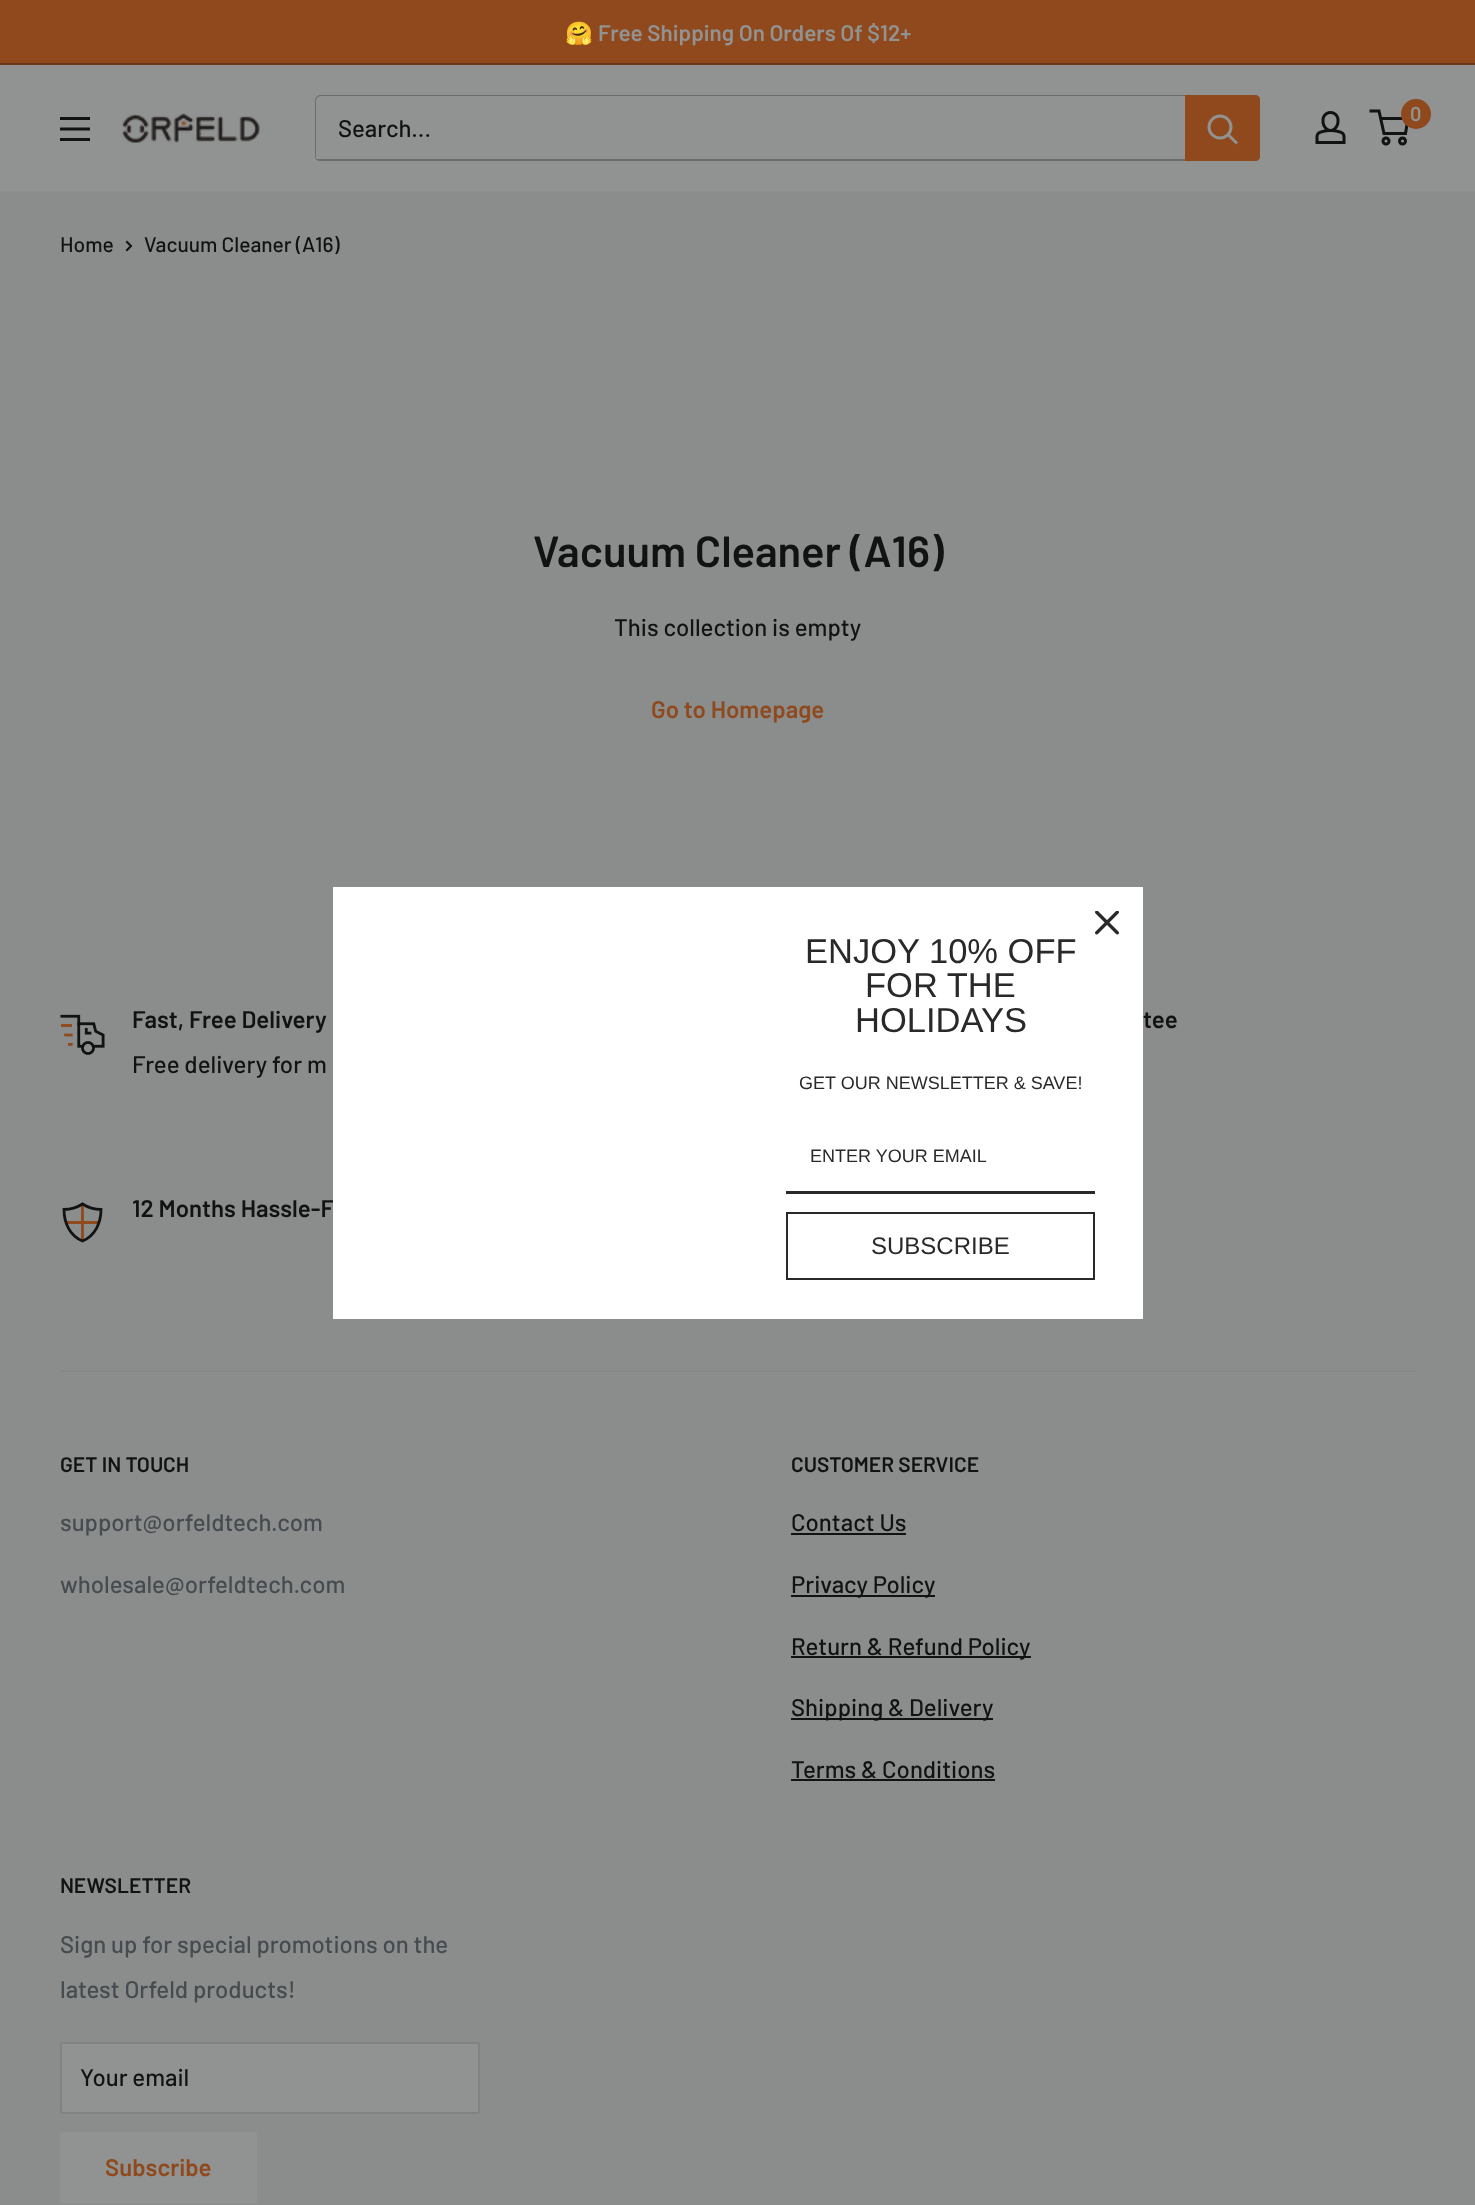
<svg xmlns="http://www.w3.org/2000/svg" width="1475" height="2205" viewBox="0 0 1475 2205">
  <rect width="100%" height="100%" fill="#8b8d8d"/>
  <rect x="0" y="0" width="1475" height="63" fill="#8f491c"/>
  <rect x="0" y="63" width="1475" height="2" fill="#693919"/>
  <text x="565" y="41" font-family="Noto Color Emoji" font-size="22.5" font-weight="bold" fill="#919292">🤗</text>
  <text x="598" y="41" font-family="Barlow" font-size="22.5" font-weight="600" fill="#919292">Free Shipping On Orders Of $12+</text>
  <rect x="0" y="65" width="1475" height="126" fill="#919292"/>
  <image x="60" y="117" width="30" height="24" href="img1.png"/>
  <image x="122" y="113" width="138" height="30" href="img2.png"/>
  <path d="M315 158C316 160 318 161 320 161H1255C1258 161 1260 159 1260 156V100C1260 98 1259 97 1258 96V98V154C1258 157 1256 159 1254 159H318C317 159 316 159 315 158Z" fill="#6b6c6c"/>
  <path d="M321 96H1258L1255 95H320C318 95 316 97 315 99V157L317 160L316 158V99C317 97 319 96 321 96Z" fill="#6b6c6c"/>
  <text x="338" y="137" font-family="Barlow" font-size="24" font-weight="500" fill="#111212">Search...</text>
  <path d="M1185 95H1255C1258 95 1260 97 1260 100V156C1260 159 1258 161 1255 161H1185Z" fill="#8f491c"/>
  <path d="M1236 142.5L1228.5 135" fill="none" stroke="#919292" stroke-width="3" stroke-linecap="square"/>
  <circle cx="1220" cy="127" r="11" fill="none" stroke="#919292" stroke-width="3"/>
  <image x="1315" y="111" width="31" height="33" href="img3.png"/>
  <circle cx="1386" cy="141" r="3" fill="none" stroke="#111212" stroke-width="3"/>
  <circle cx="1402.5" cy="141" r="3" fill="none" stroke="#111212" stroke-width="3"/>
  <path d="M1380.5 118.5H1408L1405.5 133.5H1384L1379 111H1369.5" fill="none" stroke="#111212" stroke-width="3"/>
  <circle cx="1416" cy="114" r="15" fill="#8f491c"/>
  <text x="1410" y="121" font-family="Barlow" font-size="20" font-weight="600" fill="#919292">0</text>
  <text x="60" y="252" font-family="Barlow" font-size="21" font-weight="500" fill="#111212">Home</text>
  <path d="M127 242L131 246L127 250" fill="none" stroke="#111212" stroke-width="2" stroke-linecap="square"/>
  <text x="144" y="252" font-family="Barlow" font-size="21" font-weight="500" fill="#111212">Vacuum Cleaner (A16)</text>
  <text x="533" y="567" font-family="Barlow" font-size="43.5" font-weight="600" fill="#111212">Vacuum Cleaner (A16)</text>
  <text x="614" y="636" font-family="Barlow" font-size="24" font-weight="500" fill="#111212">This collection is empty</text>
  <text x="651" y="718" font-family="Barlow" font-size="24" font-weight="600" fill="#8f491c">Go to Homepage</text>
  <text x="132" y="1217" font-family="Barlow" font-size="24" font-weight="600" fill="#111212">12 Months Hassle-F</text>
  <rect x="333" y="887" width="810" height="432" fill="#ffffff"/>
  <image x="1095" y="911" width="24" height="24" href="img4.png"/>
  <text x="805" y="963" font-family="Liberation Sans" font-size="34.5" fill="#292929">ENJOY 10% OFF</text>
  <text x="865" y="997" font-family="Liberation Sans" font-size="34.5" fill="#292929">FOR THE</text>
  <text x="855" y="1032" font-family="Liberation Sans" font-size="34.5" fill="#292929">HOLIDAYS</text>
  <text x="799" y="1089" font-family="Liberation Sans" font-size="18" fill="#292929">GET OUR NEWSLETTER &amp; SAVE!</text>
  <rect x="786" y="1191" width="309" height="3" fill="#292929"/>
  <text x="810" y="1162" font-family="Liberation Sans" font-size="18" fill="#292929">ENTER YOUR EMAIL</text>
  <rect x="787" y="1213" width="307" height="66" fill="none" stroke="#292929" stroke-width="2"/>
  <text x="871" y="1254" font-family="Liberation Sans" font-size="24" fill="#292929">SUBSCRIBE</text>
  <image x="60" y="1014" width="45" height="41" href="img5.png"/>
  <text x="132" y="1028" font-family="Barlow" font-size="24" font-weight="600" fill="#111212">Fast, Free Delivery</text>
  <text x="132" y="1073" font-family="Barlow" font-size="24" font-weight="500" fill="#111212">Free delivery for m</text>
  <text x="1143" y="1028" font-family="Barlow" font-size="24" font-weight="600" fill="#111212">tee</text>
  <path d="M82.5 1204V1241M99 1222.5H66" fill="none" stroke="#8f491c" stroke-width="2.8"/>
  <path d="M82.5 1204C77 1207.5 69.5 1209.5 64 1209.5C64 1222.5 69.5 1235.5 82.5 1241C95.5 1235.5 101 1222.5 101 1209.5C95.5 1209.5 88 1207.5 82.5 1204Z" fill="none" stroke="#111212" stroke-width="2.8" stroke-linecap="square"/>
  <rect x="60" y="1370" width="1356" height="2" fill="#878888"/>
  <text x="60" y="1472" font-family="Barlow" font-size="21" font-weight="600" fill="#111212">GET IN TOUCH</text>
  <text x="60" y="1531" font-family="Barlow" font-size="24" font-weight="500" fill="#454b4f">support@orfeldtech.com</text>
  <text x="60" y="1593" font-family="Barlow" font-size="24" font-weight="500" fill="#454b4f">wholesale@orfeldtech.com</text>
  <text x="791" y="1472" font-family="Barlow" font-size="21" font-weight="600" fill="#111212">CUSTOMER SERVICE</text>
  <text x="791" y="1531" font-family="Barlow" font-size="24" font-weight="500" fill="#111212">Contact Us</text>
  <rect x="791" y="1533" width="115" height="2" fill="#111212"/>
  <rect x="791" y="1595" width="144" height="2" fill="#111212"/>
  <text x="791" y="1593" font-family="Barlow" font-size="24" font-weight="500" fill="#111212">Privacy Policy</text>
  <rect x="791" y="1656" width="240" height="2" fill="#111212"/>
  <text x="791" y="1655" font-family="Barlow" font-size="24" font-weight="500" fill="#111212">Return &amp; Refund Policy</text>
  <rect x="791" y="1718" width="202" height="2" fill="#111212"/>
  <text x="791" y="1716" font-family="Barlow" font-size="24" font-weight="500" fill="#111212">Shipping &amp; Delivery</text>
  <text x="791" y="1778" font-family="Barlow" font-size="24" font-weight="500" fill="#111212">Terms &amp; Conditions</text>
  <rect x="791" y="1779" width="204" height="2" fill="#111212"/>
  <text x="60" y="1893" font-family="Barlow" font-size="21" font-weight="600" fill="#111212">NEWSLETTER</text>
  <text x="60" y="1953" font-family="Barlow" font-size="24" font-weight="500" fill="#454b4f">Sign up for special promotions on the</text>
  <text x="60" y="1998" font-family="Barlow" font-size="24" font-weight="500" fill="#454b4f">latest Orfeld products!</text>
  <rect x="61" y="2043" width="418" height="70" rx="2" fill="#919292" stroke="#818282" stroke-width="2"/>
  <text x="80" y="2086" font-family="Barlow" font-size="24" font-weight="500" fill="#111212">Your email</text>
  <rect x="60" y="2132" width="197" height="72" rx="3" fill="#919292"/>
  <text x="105" y="2176" font-family="Barlow" font-size="24" font-weight="600" fill="#8f491c">Subscribe</text>
</svg>
